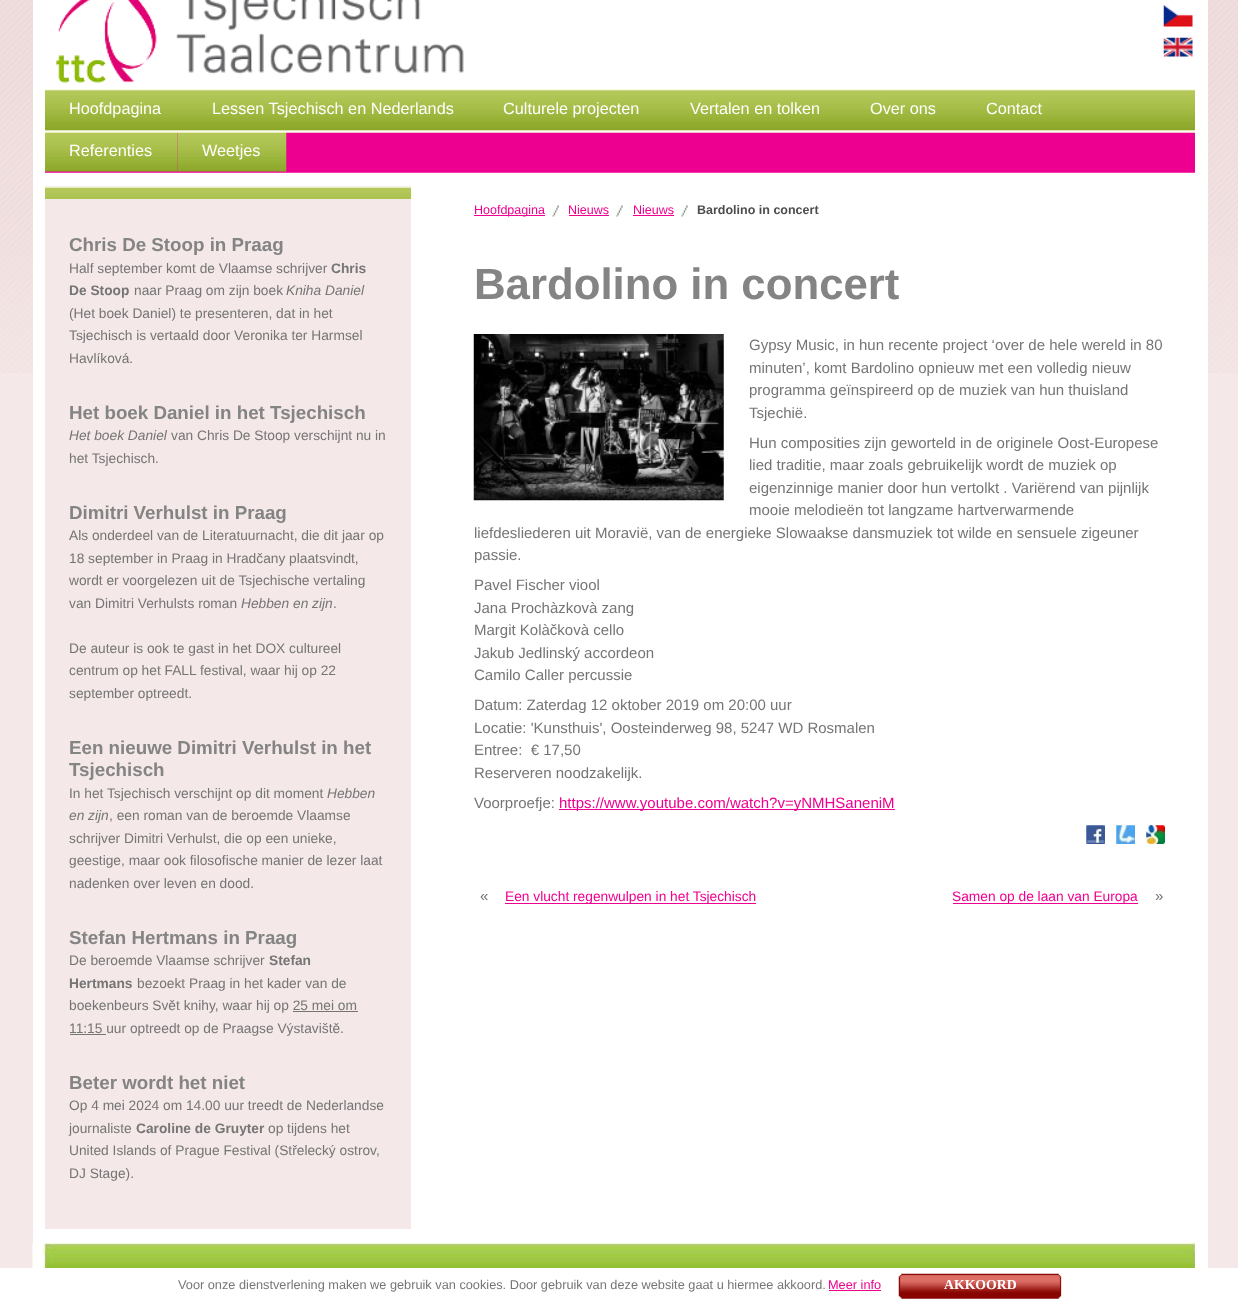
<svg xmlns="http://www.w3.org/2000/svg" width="1238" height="1305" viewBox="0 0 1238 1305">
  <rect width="100%" height="100%" fill="#f4e8e8"/>
  <image x="0" y="0" width="1238" height="373" href="img1.png"/>
  <image x="32" y="1242" width="1163" height="26" href="img16.png"/>
  <rect x="33" y="0" width="1175" height="1243" fill="#ffffff"/>
  <image x="56" y="0" width="408" height="83" href="img2.png"/>
  <image x="1163" y="4" width="30" height="23" href="img3.png"/>
  <image x="1163" y="37" width="30" height="20" href="img4.png"/>
  <image x="45" y="89" width="1150" height="84" href="img5.png"/>
  <text x="69" y="114" font-family="Liberation Sans" font-size="16.25" fill="#ffffff">Hoofdpagina</text>
  <text x="212" y="114" font-family="Liberation Sans" font-size="16.25" fill="#ffffff">Lessen Tsjechisch en Nederlands</text>
  <text x="503" y="114" font-family="Liberation Sans" font-size="16.25" fill="#ffffff">Culturele projecten</text>
  <text x="690" y="114" font-family="Liberation Sans" font-size="16.25" fill="#ffffff">Vertalen en tolken</text>
  <text x="870" y="114" font-family="Liberation Sans" font-size="16.25" fill="#ffffff">Over ons</text>
  <text x="986" y="114" font-family="Liberation Sans" font-size="16.25" fill="#ffffff">Contact</text>
  <image x="45" y="131" width="133" height="41" href="img6.png"/>
  <text x="69" y="156" font-family="Liberation Sans" font-size="16.25" fill="#ffffff">Referenties</text>
  <image x="177" y="131" width="110" height="41" href="img7.png"/>
  <text x="202" y="156" font-family="Liberation Sans" font-size="16.25" fill="#ffffff">Weetjes</text>
  <rect x="45" y="186" width="366" height="1043" fill="#f4e8e8"/>
  <image x="45" y="186" width="367" height="13" href="img8.png"/>
  <text x="69" y="251" font-family="Liberation Sans" font-size="18.75" font-weight="bold" fill="#848484">Chris De Stoop in Praag</text>
  <text x="69" y="273" font-family="Liberation Sans" font-size="13.75" fill="#757575">Half september komt de Vlaamse schrijver</text>
  <text x="331" y="273" font-family="Liberation Sans" font-size="13.75" font-weight="bold" fill="#757575">Chris</text>
  <text x="69" y="295" font-family="Liberation Sans" font-size="13.75" font-weight="bold" fill="#757575">De Stoop</text>
  <text x="134" y="295" font-family="Liberation Sans" font-size="13.75" fill="#757575">naar Praag om zijn boek</text>
  <text x="286" y="295" font-family="Liberation Sans" font-size="13.75" font-style="italic" fill="#757575">Kniha Daniel</text>
  <text x="69" y="318" font-family="Liberation Sans" font-size="13.75" fill="#757575">(Het boek Daniel) te presenteren, dat in het</text>
  <text x="69" y="340" font-family="Liberation Sans" font-size="13.75" fill="#757575">Tsjechisch is vertaald door Veronika ter Harmsel</text>
  <text x="69" y="363" font-family="Liberation Sans" font-size="13.75" fill="#757575">Havlíková.</text>
  <text x="69" y="419" font-family="Liberation Sans" font-size="18.75" font-weight="bold" fill="#848484">Het boek Daniel in het Tsjechisch</text>
  <text x="69" y="440" font-family="Liberation Sans" font-size="13.75" font-style="italic" fill="#757575">Het boek Daniel</text>
  <text x="171" y="440" font-family="Liberation Sans" font-size="13.75" fill="#757575">van Chris De Stoop verschijnt nu in</text>
  <text x="69" y="463" font-family="Liberation Sans" font-size="13.75" fill="#757575">het Tsjechisch.</text>
  <text x="69" y="519" font-family="Liberation Sans" font-size="18.75" font-weight="bold" fill="#848484">Dimitri Verhulst in Praag</text>
  <text x="69" y="540" font-family="Liberation Sans" font-size="13.75" fill="#757575">Als onderdeel van de Literatuurnacht, die dit jaar op</text>
  <text x="69" y="563" font-family="Liberation Sans" font-size="13.75" fill="#757575">18 september in Praag in Hradčany plaatsvindt,</text>
  <text x="69" y="585" font-family="Liberation Sans" font-size="13.75" fill="#757575">wordt er voorgelezen uit de Tsjechische vertaling</text>
  <text x="69" y="608" font-family="Liberation Sans" font-size="13.75" fill="#757575">van Dimitri Verhulsts roman</text>
  <text x="241" y="608" font-family="Liberation Sans" font-size="13.75" font-style="italic" fill="#757575">Hebben en zijn</text>
  <text x="333" y="608" font-family="Liberation Sans" font-size="13.75" fill="#757575">.</text>
  <text x="69" y="653" font-family="Liberation Sans" font-size="13.75" fill="#757575">De auteur is ook te gast in het DOX cultureel</text>
  <text x="69" y="675" font-family="Liberation Sans" font-size="13.75" fill="#757575">centrum op het FALL festival, waar hij op 22</text>
  <text x="69" y="698" font-family="Liberation Sans" font-size="13.75" fill="#757575">september optreedt.</text>
  <text x="69" y="754" font-family="Liberation Sans" font-size="18.75" font-weight="bold" fill="#848484">Een nieuwe Dimitri Verhulst in het</text>
  <text x="69" y="776" font-family="Liberation Sans" font-size="18.75" font-weight="bold" fill="#848484">Tsjechisch</text>
  <text x="69" y="798" font-family="Liberation Sans" font-size="13.75" fill="#757575">In het Tsjechisch verschijnt op dit moment</text>
  <text x="327" y="798" font-family="Liberation Sans" font-size="13.75" font-style="italic" fill="#757575">Hebben</text>
  <text x="69" y="820" font-family="Liberation Sans" font-size="13.75" font-style="italic" fill="#757575">en zijn</text>
  <text x="109" y="820" font-family="Liberation Sans" font-size="13.75" fill="#757575">, een roman van de beroemde Vlaamse</text>
  <text x="69" y="843" font-family="Liberation Sans" font-size="13.75" fill="#757575">schrijver Dimitri Verhulst, die op een unieke,</text>
  <text x="69" y="865" font-family="Liberation Sans" font-size="13.75" fill="#757575">geestige, maar ook filosofische manier de lezer laat</text>
  <text x="69" y="888" font-family="Liberation Sans" font-size="13.75" fill="#757575">nadenken over leven en dood.</text>
  <text x="69" y="944" font-family="Liberation Sans" font-size="18.75" font-weight="bold" fill="#848484">Stefan Hertmans in Praag</text>
  <text x="69" y="965" font-family="Liberation Sans" font-size="13.75" fill="#757575">De beroemde Vlaamse schrijver</text>
  <text x="269" y="965" font-family="Liberation Sans" font-size="13.75" font-weight="bold" fill="#757575">Stefan</text>
  <text x="69" y="988" font-family="Liberation Sans" font-size="13.75" font-weight="bold" fill="#757575">Hertmans</text>
  <text x="137" y="988" font-family="Liberation Sans" font-size="13.75" fill="#757575">bezoekt Praag in het kader van de</text>
  <text x="69" y="1010" font-family="Liberation Sans" font-size="13.75" fill="#757575">boekenbeurs Svět knihy, waar hij op 25 mei om</text>
  <rect x="70" y="1034" width="36" height="1" fill="#757575"/>
  <text x="69" y="1033" font-family="Liberation Sans" font-size="13.75" fill="#757575">11:15 uur optreedt op de Praagse Výstaviště.</text>
  <rect x="293" y="1011" width="65" height="1" fill="#757575"/>
  <text x="69" y="1089" font-family="Liberation Sans" font-size="18.75" font-weight="bold" fill="#848484">Beter wordt het niet</text>
  <text x="69" y="1110" font-family="Liberation Sans" font-size="13.75" fill="#757575">Op 4 mei 2024 om 14.00 uur treedt de Nederlandse</text>
  <text x="69" y="1133" font-family="Liberation Sans" font-size="13.75" fill="#757575">journaliste</text>
  <text x="136" y="1133" font-family="Liberation Sans" font-size="13.75" font-weight="bold" fill="#757575">Caroline de Gruyter</text>
  <text x="268" y="1133" font-family="Liberation Sans" font-size="13.75" fill="#757575">op tijdens het</text>
  <text x="69" y="1155" font-family="Liberation Sans" font-size="13.75" fill="#757575">United Islands of Prague Festival (Střelecký ostrov,</text>
  <text x="69" y="1178" font-family="Liberation Sans" font-size="13.75" fill="#757575">DJ Stage).</text>
  <rect x="474" y="215" width="71" height="1" fill="#ef008f"/>
  <text x="474" y="214" font-family="Liberation Sans" font-size="12.5" fill="#ef008f">Hoofdpagina</text>
  <image x="552" y="205" width="7" height="12" href="img9.png"/>
  <text x="568" y="214" font-family="Liberation Sans" font-size="12.5" fill="#ef008f">Nieuws</text>
  <rect x="569" y="215" width="40" height="1" fill="#ef008f"/>
  <image x="616" y="205" width="7" height="12" href="img10.png"/>
  <text x="633" y="214" font-family="Liberation Sans" font-size="12.5" fill="#ef008f">Nieuws</text>
  <rect x="633" y="215" width="41" height="1" fill="#ef008f"/>
  <image x="681" y="205" width="7" height="12" href="img11.png"/>
  <text x="697" y="214" font-family="Liberation Sans" font-size="12.5" font-weight="bold" fill="#4d4d4d">Bardolino in concert</text>
  <text x="474" y="299" font-family="Liberation Sans" font-size="43.75" font-weight="bold" fill="#848484">Bardolino in concert</text>
  <image x="473" y="334" width="251" height="167" href="img12.png"/>
  <text x="749" y="350" font-family="Liberation Sans" font-size="15" fill="#757575">Gypsy Music, in hun recente project ‘over de hele wereld in 80</text>
  <text x="749" y="373" font-family="Liberation Sans" font-size="15" fill="#757575">minuten’, komt Bardolino opnieuw met een volledig nieuw</text>
  <text x="749" y="395" font-family="Liberation Sans" font-size="15" fill="#757575">programma geïnspireerd op de muziek van hun thuisland</text>
  <text x="749" y="418" font-family="Liberation Sans" font-size="15" fill="#757575">Tsjechië.</text>
  <text x="749" y="448" font-family="Liberation Sans" font-size="15" fill="#757575">Hun composities zijn geworteld in de originele Oost-Europese</text>
  <text x="749" y="470" font-family="Liberation Sans" font-size="15" fill="#757575">lied traditie, maar zoals gebruikelijk wordt de muziek op</text>
  <text x="749" y="493" font-family="Liberation Sans" font-size="15" fill="#757575">eigenzinnige manier door hun vertolkt . Variërend van pijnlijk</text>
  <text x="749" y="515" font-family="Liberation Sans" font-size="15" fill="#757575">mooie melodieën tot langzame hartverwarmende</text>
  <text x="474" y="538" font-family="Liberation Sans" font-size="15" fill="#757575">liefdesliederen uit Moravië, van de energieke Slowaakse dansmuziek tot wilde en sensuele zigeuner</text>
  <text x="474" y="560" font-family="Liberation Sans" font-size="15" fill="#757575">passie.</text>
  <text x="474" y="590" font-family="Liberation Sans" font-size="15" fill="#757575">Pavel Fischer viool</text>
  <text x="474" y="613" font-family="Liberation Sans" font-size="15" fill="#757575">Jana Prochàzkovà zang</text>
  <text x="474" y="635" font-family="Liberation Sans" font-size="15" fill="#757575">Margit Kolàčkovà cello</text>
  <text x="474" y="658" font-family="Liberation Sans" font-size="15" fill="#757575">Jakub Jedlinský accordeon</text>
  <text x="474" y="680" font-family="Liberation Sans" font-size="15" fill="#757575">Camilo Caller percussie</text>
  <text x="474" y="710" font-family="Liberation Sans" font-size="15" fill="#757575">Datum: Zaterdag 12 oktober 2019 om 20:00 uur</text>
  <text x="474" y="733" font-family="Liberation Sans" font-size="15" fill="#757575">Locatie: 'Kunsthuis', Oosteinderweg 98, 5247 WD Rosmalen</text>
  <text x="474" y="755" font-family="Liberation Sans" font-size="15" fill="#757575" xml:space="preserve">Entree:  € 17,50</text>
  <text x="474" y="778" font-family="Liberation Sans" font-size="15" fill="#757575">Reserveren noodzakelijk.</text>
  <text x="474" y="808" font-family="Liberation Sans" font-size="15" fill="#757575">Voorproefje:</text>
  <rect x="559" y="809" width="336" height="1" fill="#ef008f"/>
  <text x="559" y="808" font-family="Liberation Sans" font-size="15" fill="#ef008f">https://www.youtube.com/watch?v=yNMHSaneniM</text>
  <image x="1086" y="825" width="19" height="19" href="img13.png"/>
  <image x="1116" y="825" width="19" height="19" href="img14.png"/>
  <image x="1146" y="825" width="19" height="19" href="img15.png"/>
  <text x="480" y="901" font-family="Liberation Sans" font-size="15" fill="#757575">«</text>
  <rect x="505" y="903" width="251" height="1" fill="#ef008f"/>
  <text x="505" y="901" font-family="Liberation Sans" font-size="13.75" fill="#ef008f">Een vlucht regenwulpen in het Tsjechisch</text>
  <rect x="953" y="903" width="185" height="1" fill="#ef008f"/>
  <text x="952" y="901" font-family="Liberation Sans" font-size="13.75" fill="#ef008f">Samen op de laan van Europa</text>
  <text x="1155" y="901" font-family="Liberation Sans" font-size="15" fill="#757575">»</text>
  <rect x="1195" y="1243" width="13" height="25" fill="#ffffff"/>
  <rect x="0" y="1268" width="1238" height="37" fill="#ffffff"/>
  <text x="178" y="1289" font-family="Liberation Sans" font-size="12.75" fill="#757575">Voor onze dienstverlening maken we gebruik van cookies. Door gebruik van deze website gaat u hiermee akkoord.</text>
  <text x="828" y="1289" font-family="Liberation Sans" font-size="12.75" fill="#ef008f">Meer info</text>
  <rect x="829" y="1290" width="52" height="1" fill="#ef008f"/>
  <image x="898" y="1273" width="164" height="26" href="img17.png"/>
  <text x="944" y="1289" font-family="Liberation Serif" font-size="13.75" font-weight="bold" fill="#ffffff">AKKOORD</text>
</svg>
